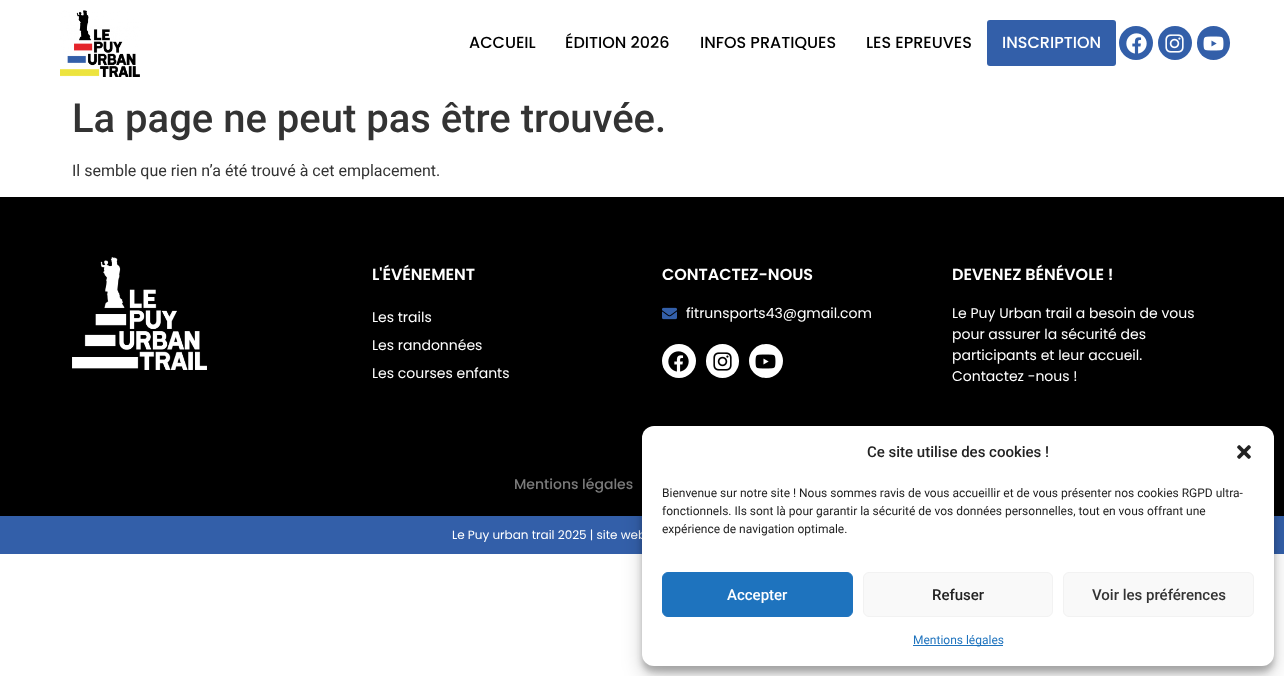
<svg xmlns="http://www.w3.org/2000/svg" width="1284" height="676" viewBox="0 0 1284 676">
  <defs>
    <filter id="blur1" x="-50%" y="-200%" width="200%" height="500%"><feGaussianBlur stdDeviation="3"/></filter>
    <filter id="blur2" x="-50%" y="-200%" width="200%" height="500%"><feGaussianBlur stdDeviation="10"/></filter>
  </defs>
  <rect width="100%" height="100%" fill="#ffffff"/>
  <image x="60" y="10" width="80" height="67" href="img1.png"/>
  <text x="469" y="48" font-family="Poppins" font-size="16" font-weight="500" fill="#000000">ACCUEIL</text>
  <text x="565" y="48" font-family="Poppins" font-size="16" font-weight="500" fill="#000000">ÉDITION 2026</text>
  <text x="700" y="48" font-family="Poppins" font-size="16" font-weight="500" fill="#000000">INFOS PRATIQUES</text>
  <text x="866" y="48" font-family="Poppins" font-size="16" font-weight="500" fill="#000000">LES EPREUVES</text>
  <rect x="987" y="20" width="129" height="46" rx="3" fill="#335fa9"/>
  <text x="1002" y="48" font-family="Poppins" font-size="16" font-weight="500" fill="#ffffff">INSCRIPTION</text>
  <circle cx="1136" cy="43" r="17" fill="#335fa9"/>
  <image x="1126" y="33" width="21" height="21" href="img2.png"/>
  <circle cx="1175" cy="43" r="17" fill="#335fa9"/>
  <image x="1165" y="34" width="19" height="19" href="img3.png"/>
  <rect x="1197" y="26" width="33" height="34" rx="16.5" fill="#335fa9"/>
  <image x="1203" y="36" width="21" height="15" href="img4.png"/>
  <text x="72" y="132" font-family="Roboto" font-size="40" font-weight="500" fill="#333333">La page ne peut pas être trouvée.</text>
  <text x="72" y="176" font-family="Roboto" font-size="16" fill="#333333">Il semble que rien n’a été trouvé à cet emplacement.</text>
  <rect x="0" y="197" width="1284" height="319" fill="#000000"/>
  <image x="72" y="257" width="135" height="113" href="img5.png"/>
  <text x="372" y="280" font-family="Poppins" font-size="16" font-weight="600" fill="#ffffff">L'ÉVÉNEMENT</text>
  <text x="372" y="322" font-family="Poppins" font-size="14" fill="#ffffff">Les trails</text>
  <text x="372" y="350" font-family="Poppins" font-size="14" fill="#ffffff">Les randonnées</text>
  <text x="372" y="378" font-family="Poppins" font-size="14" fill="#ffffff">Les courses enfants</text>
  <text x="662" y="280" font-family="Poppins" font-size="16" font-weight="600" fill="#ffffff">CONTACTEZ-NOUS</text>
  <image x="662" y="307" width="15" height="13" href="img6.png"/>
  <text x="686" y="318" font-family="Poppins" font-size="14" fill="#ffffff">fitrunsports43@gmail.com</text>
  <circle cx="679" cy="361" r="17" fill="#ffffff"/>
  <image x="668" y="351" width="21" height="21" href="img7.png"/>
  <rect x="706" y="344" width="33" height="34" rx="16.5" fill="#ffffff"/>
  <image x="713" y="352" width="19" height="19" href="img8.png"/>
  <circle cx="766" cy="361" r="17" fill="#ffffff"/>
  <image x="755" y="354" width="21" height="15" href="img9.png"/>
  <text x="952" y="280" font-family="Poppins" font-size="16" font-weight="600" fill="#ffffff">DEVENEZ BÉNÉVOLE !</text>
  <text x="952" y="318" font-family="Poppins" font-size="14" fill="#ffffff">Le Puy Urban trail a besoin de vous</text>
  <text x="952" y="339" font-family="Poppins" font-size="14" fill="#ffffff">pour assurer la sécurité des</text>
  <text x="952" y="360" font-family="Poppins" font-size="14" fill="#ffffff">participants et leur accueil.</text>
  <text x="952" y="381" font-family="Poppins" font-size="14" fill="#ffffff">Contactez -nous !</text>
  <text x="514" y="489" font-family="Poppins" font-size="14" font-weight="500" fill="#7c7c7c">Mentions légales</text>
  <rect x="0" y="516" width="1284" height="38" fill="#335fa9"/>
  <text x="452" y="539" font-family="Poppins" font-size="12" fill="#ffffff">Le Puy urban trail 2025 | site web</text>
  <rect x="642" y="432" width="632" height="240" rx="12" fill="#000000" fill-opacity="0.23" filter="url(#blur1)"/>
  <rect x="642" y="436" width="632" height="240" rx="12" fill="#000000" fill-opacity="0.19" filter="url(#blur2)"/>
  <rect x="642" y="426" width="632" height="240" rx="12" fill="#ffffff"/>
  <text x="867" y="457" font-family="Roboto" font-size="15" font-weight="500" fill="#222222">Ce site utilise des cookies !</text>
  <image x="1237" y="445" width="14" height="14" href="img10.png"/>
  <text x="662" y="497" font-family="Roboto" font-size="12" fill="#222222">Bienvenue sur notre site ! Nous sommes ravis de vous accueillir et de vous présenter nos cookies RGPD ultra-</text>
  <text x="662" y="515" font-family="Roboto" font-size="12" fill="#222222">fonctionnels. Ils sont là pour garantir la sécurité de vos données personnelles, tout en vous offrant une</text>
  <text x="662" y="533" font-family="Roboto" font-size="12" fill="#222222">expérience de navigation optimale.</text>
  <rect x="662.5" y="572.5" width="190" height="44" rx="5.5" fill="#1e73be" stroke="#1e73be"/>
  <text x="727" y="600" font-family="Roboto" font-size="15" font-weight="500" fill="#ffffff">Accepter</text>
  <rect x="863.5" y="572.5" width="189" height="44" rx="5.5" fill="#f9f9f9" stroke="#f2f2f2"/>
  <text x="932" y="600" font-family="Roboto" font-size="15" font-weight="500" fill="#222222">Refuser</text>
  <rect x="1063.5" y="572.5" width="190" height="44" rx="5.5" fill="#f9f9f9" stroke="#f2f2f2"/>
  <text x="1092" y="600" font-family="Roboto" font-size="15" font-weight="500" fill="#333333">Voir les préférences</text>
  <rect x="913" y="645" width="90" height="1" fill="#1e73be"/>
  <text x="913" y="644" font-family="Roboto" font-size="12" fill="#1e73be">Mentions légales</text>
</svg>
